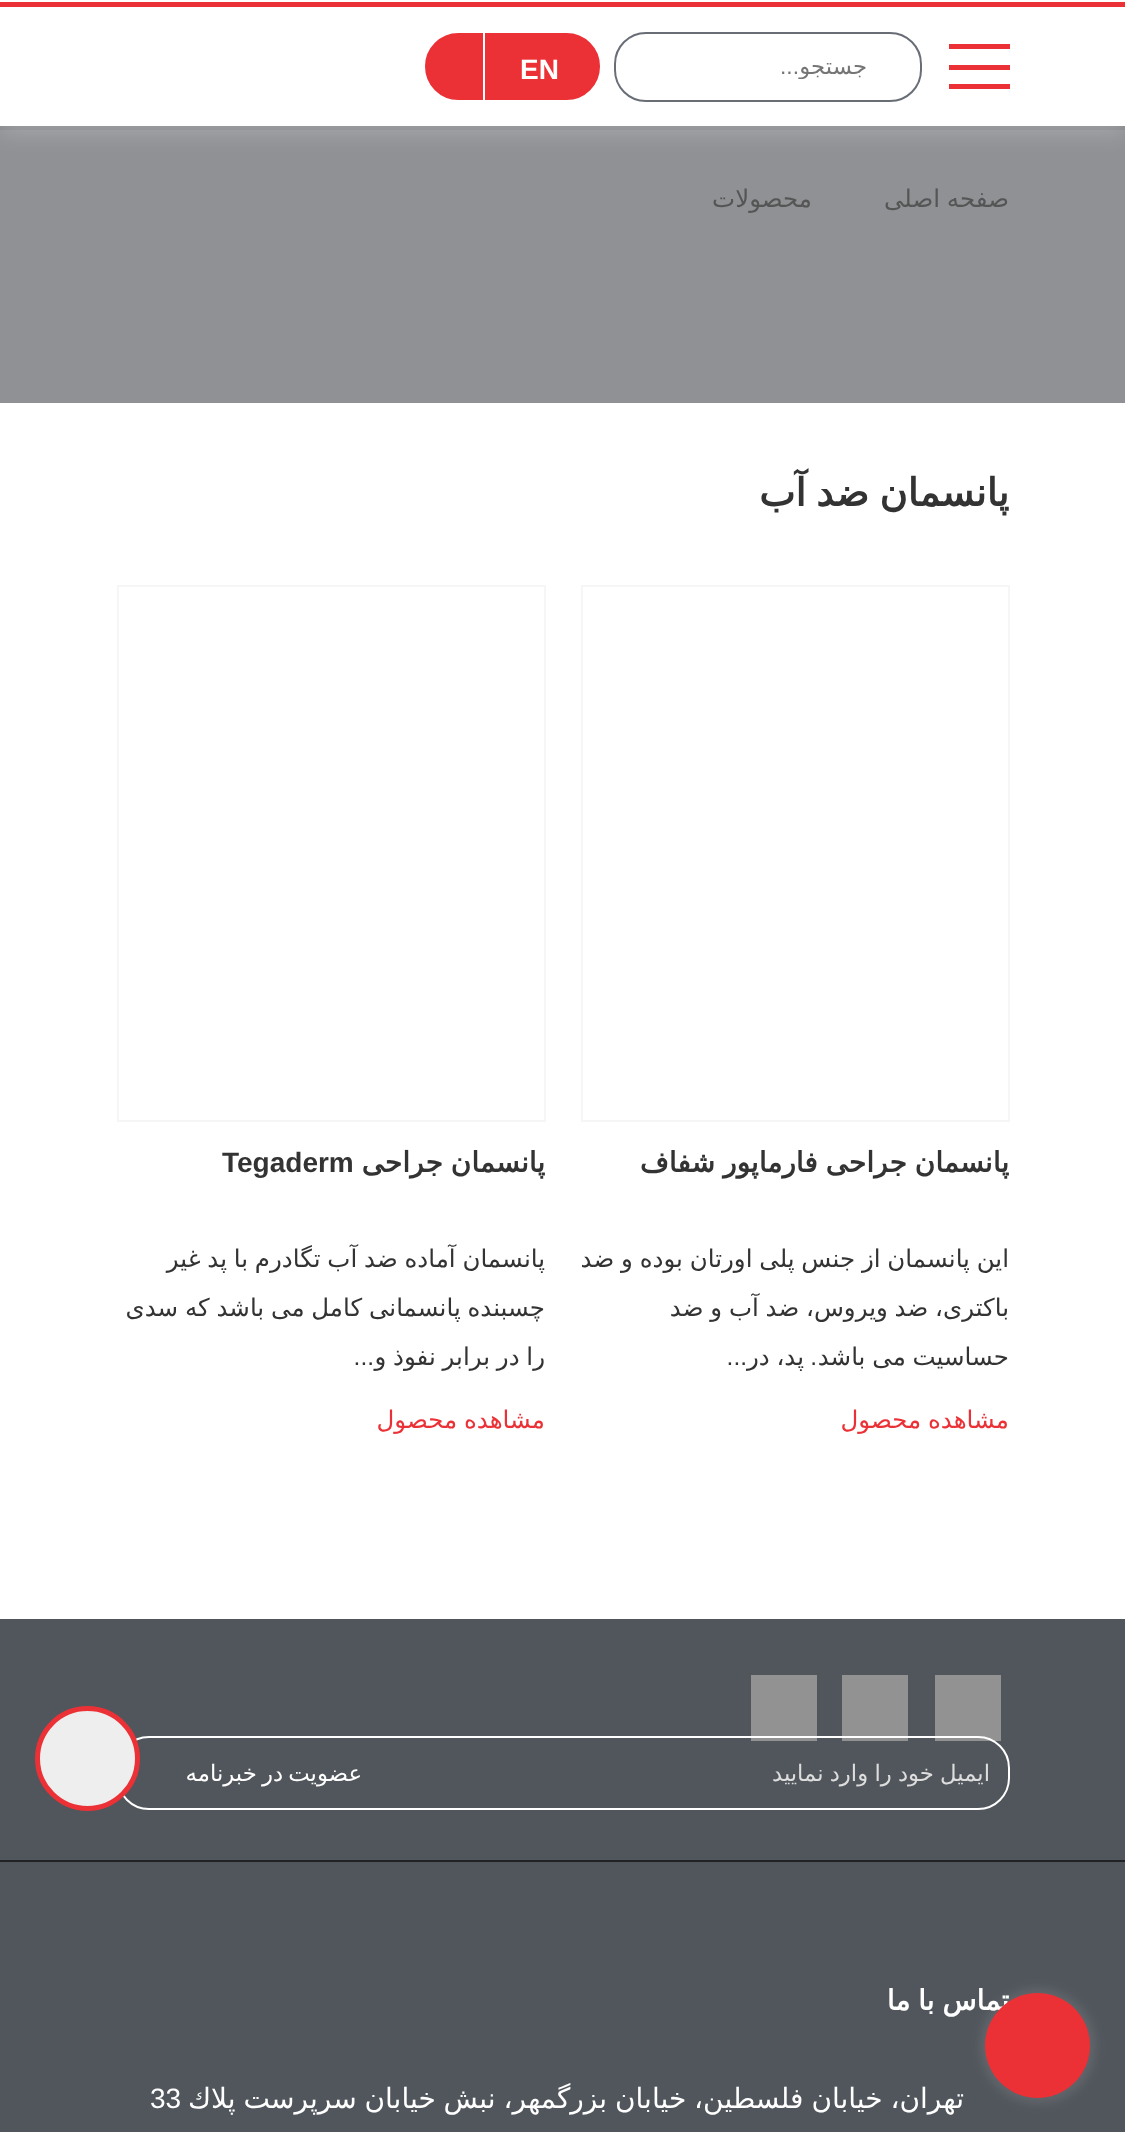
<svg xmlns="http://www.w3.org/2000/svg" width="1125" height="2132" viewBox="0 0 1125 2132">
  <defs>
    <filter id="blur1" x="-50%" y="-200%" width="200%" height="500%"><feGaussianBlur stdDeviation="10.5"/></filter>
    <clipPath id="clip1"><rect x="620" y="53" width="246" height="26"/></clipPath>
    <filter id="blur2" x="-50%" y="-200%" width="200%" height="500%"><feGaussianBlur stdDeviation="5"/></filter>
  </defs>
  <rect width="100%" height="100%" fill="#ffffff"/>
  <rect x="0" y="130" width="1125" height="273" fill="#8f9194"/>
  <rect x="0" y="126" width="1125" height="4" fill="#85878a"/>
  <rect x="0" y="9" width="1125" height="124" fill="#e6e6e6" fill-opacity="0.25" filter="url(#blur1)"/>
  <rect x="0" y="7" width="1125" height="119" fill="#ffffff"/>
  <rect x="0" y="2" width="1125" height="5" fill="#eb3136"/>
  <rect x="949" y="65" width="61" height="5" fill="#eb3136"/>
  <rect x="949" y="44" width="61" height="5" fill="#eb3136"/>
  <rect x="949" y="84" width="61" height="5" fill="#eb3136"/>
  <rect x="615" y="33" width="306" height="68" rx="31" fill="none" stroke="#686d76" stroke-width="2"/>
  <g clip-path="url(#clip1)">
    <text x="867" y="74" font-family="DejaVu Sans" font-size="22.75" direction="rtl" fill="#757575">جستجو</text>
  </g>
  <text x="799" y="74" font-family="Liberation Sans" font-size="22.75" direction="rtl" fill="#757575">...</text>
  <rect x="426" y="34" width="173" height="65" rx="32.5" fill="#eb3136" stroke="#eb3136" stroke-width="2"/>
  <text x="520" y="79" font-family="Liberation Sans" font-size="28" font-weight="bold" fill="#ffffff">EN</text>
  <rect x="483" y="33" width="2" height="67" fill="#ffffff"/>
  <text x="1009" y="207" word-spacing="-1" font-family="DejaVu Sans" font-size="24.5" direction="rtl" fill="#555555">صفحه اصلی</text>
  <text x="812" y="207" font-family="DejaVu Sans" font-size="24.5" direction="rtl" fill="#555555">محصولات</text>
  <text x="1009" y="506" word-spacing="-2" font-family="DejaVu Sans" font-size="38.5" font-weight="bold" direction="rtl" fill="#333333">پانسمان ضد آب</text>
  <rect x="582" y="586" width="427" height="535" fill="none" stroke="#f6f6f6" stroke-width="2"/>
  <text x="1009" y="1172" word-spacing="-1" font-family="DejaVu Sans" font-size="28" font-weight="bold" direction="rtl" fill="#333333">پانسمان جراحی فارماپور شفاف</text>
  <text x="1009" y="1267" word-spacing="-1" font-family="DejaVu Sans" font-size="24.5" direction="rtl" fill="#333333">این پانسمان از جنس پلی اورتان بوده و ضد</text>
  <text x="1009" y="1316" word-spacing="-1" font-family="DejaVu Sans" font-size="24.5" direction="rtl" fill="#333333">باکتری، ضد ویروس، ضد آب و ضد</text>
  <text x="1009" y="1365" word-spacing="-1" font-family="DejaVu Sans" font-size="24.5" direction="rtl" fill="#333333">حساسیت می باشد</text>
  <text x="817" y="1365" font-family="Liberation Sans" font-size="24.5" direction="rtl" fill="#333333">.</text>
  <text x="804" y="1365" word-spacing="-1" font-family="DejaVu Sans" font-size="24.5" direction="rtl" fill="#333333">پد، در</text>
  <text x="747" y="1365" font-family="Liberation Sans" font-size="24.5" direction="rtl" fill="#333333">...</text>
  <text x="1009" y="1428" word-spacing="-1" font-family="DejaVu Sans" font-size="24.5" direction="rtl" fill="#eb3136">مشاهده محصول</text>
  <rect x="118" y="586" width="427" height="535" fill="none" stroke="#f6f6f6" stroke-width="2"/>
  <text x="545" y="1172" word-spacing="-1" font-family="DejaVu Sans" font-size="28" font-weight="bold" direction="rtl" fill="#333333">پانسمان جراحی</text>
  <text x="222" y="1172" font-family="Liberation Sans" font-size="28" font-weight="bold" fill="#333333">Tegaderm</text>
  <text x="545" y="1267" word-spacing="-1" font-family="DejaVu Sans" font-size="24.5" direction="rtl" fill="#333333">پانسمان آماده ضد آب تگادرم با پد غیر</text>
  <text x="545" y="1316" word-spacing="-1" font-family="DejaVu Sans" font-size="24.5" direction="rtl" fill="#333333">چسبنده پانسمانی کامل می باشد که سدی</text>
  <text x="545" y="1365" word-spacing="-1" font-family="DejaVu Sans" font-size="24.5" direction="rtl" fill="#333333">را در برابر نفوذ و</text>
  <text x="374" y="1365" font-family="Liberation Sans" font-size="24.5" direction="rtl" fill="#333333">...</text>
  <text x="545" y="1428" word-spacing="-1" font-family="DejaVu Sans" font-size="24.5" direction="rtl" fill="#eb3136">مشاهده محصول</text>
  <rect x="0" y="1619" width="1125" height="513" fill="#51565c"/>
  <rect x="980" y="1988" width="116" height="116" rx="58" fill="#ffffff" fill-opacity="0.09" filter="url(#blur2)"/>
  <text x="1009" y="2010" word-spacing="-1" font-family="DejaVu Sans" font-size="28" font-weight="bold" direction="rtl" fill="#ffffff">تماس با ما</text>
  <circle cx="1037.5" cy="2045.5" r="52.5" fill="#eb3136"/>
  <rect x="0" y="1860" width="1125" height="2" fill="#202225"/>
  <rect x="935" y="1675" width="66" height="66" fill="#929292"/>
  <rect x="842" y="1675" width="66" height="66" fill="#929292"/>
  <rect x="751" y="1675" width="66" height="66" fill="#929292"/>
  <rect x="118" y="1737" width="891" height="72" rx="31" fill="none" stroke="#ffffff" stroke-width="2"/>
  <text x="990" y="1781" word-spacing="-1" font-family="DejaVu Sans" font-size="22.75" direction="rtl" fill="#dddddd">ایمیل خود را وارد نمایید</text>
  <text x="362" y="1781" word-spacing="-2" font-family="DejaVu Sans" font-size="22.75" direction="rtl" fill="#ffffff">عضویت در خبرنامه</text>
  <text x="964" y="2108" word-spacing="-1" font-family="DejaVu Sans" font-size="28" direction="rtl" fill="#ffffff">تهران، خیابان فلسطين، خيابان بزرگمهر، نبش خيابان سرپرست پلاك</text>
  <text x="150" y="2108" font-family="Liberation Sans" font-size="28" fill="#ffffff">33</text>
  <circle cx="87.5" cy="1758.5" r="50" fill="#eeeeee" stroke="#eb3136" stroke-width="5"/>
</svg>
